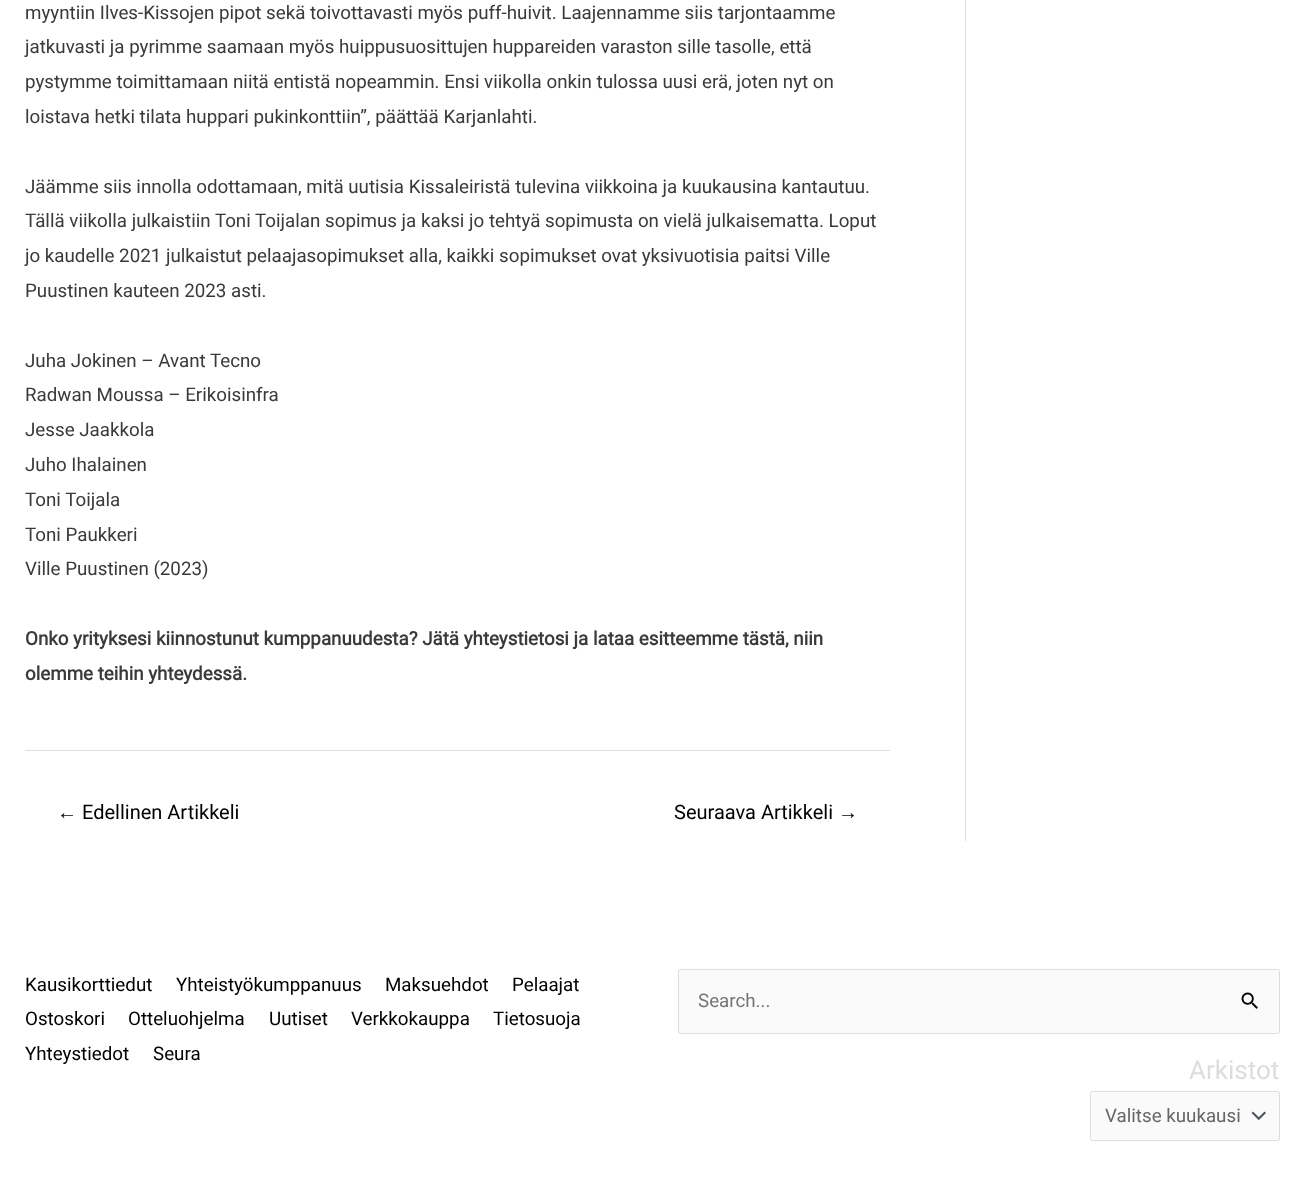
<svg xmlns="http://www.w3.org/2000/svg" width="1304" height="1191" viewBox="0 0 1304 1191">
  <rect width="100%" height="100%" fill="#ffffff"/>
  <rect x="965" y="0" width="1" height="841" fill="#dddddd"/>
  <text x="25" y="19" font-family="Roboto" font-size="18.75" fill="#3a3a3a">myyntiin Ilves-Kissojen pipot sekä toivottavasti myös puff-huivit. Laajennamme siis tarjontaamme</text>
  <text x="25" y="53" font-family="Roboto" font-size="18.75" fill="#3a3a3a">jatkuvasti ja pyrimme saamaan myös huippusuosittujen huppareiden varaston sille tasolle, että</text>
  <text x="25" y="88" font-family="Roboto" font-size="18.75" fill="#3a3a3a">pystymme toimittamaan niitä entistä nopeammin. Ensi viikolla onkin tulossa uusi erä, joten nyt on</text>
  <text x="25" y="123" font-family="Roboto" font-size="18.75" fill="#3a3a3a">loistava hetki tilata huppari pukinkonttiin”, päättää Karjanlahti.</text>
  <text x="25" y="193" font-family="Roboto" font-size="18.75" fill="#3a3a3a">Jäämme siis innolla odottamaan, mitä uutisia Kissaleiristä tulevina viikkoina ja kuukausina kantautuu.</text>
  <text x="25" y="227" font-family="Roboto" font-size="18.75" fill="#3a3a3a">Tällä viikolla julkaistiin Toni Toijalan sopimus ja kaksi jo tehtyä sopimusta on vielä julkaisematta. Loput</text>
  <text x="25" y="262" font-family="Roboto" font-size="18.75" fill="#3a3a3a">jo kaudelle 2021 julkaistut pelaajasopimukset alla, kaikki sopimukset ovat yksivuotisia paitsi Ville</text>
  <text x="25" y="297" font-family="Roboto" font-size="18.75" fill="#3a3a3a">Puustinen kauteen 2023 asti.</text>
  <text x="25" y="367" font-family="Roboto" font-size="18.75" fill="#3a3a3a">Juha Jokinen – Avant Tecno</text>
  <text x="25" y="401" font-family="Roboto" font-size="18.75" fill="#3a3a3a">Radwan Moussa – Erikoisinfra</text>
  <text x="25" y="436" font-family="Roboto" font-size="18.75" fill="#3a3a3a">Jesse Jaakkola</text>
  <text x="25" y="471" font-family="Roboto" font-size="18.75" fill="#3a3a3a">Juho Ihalainen</text>
  <text x="25" y="506" font-family="Roboto" font-size="18.75" fill="#3a3a3a">Toni Toijala</text>
  <text x="25" y="541" font-family="Roboto" font-size="18.75" fill="#3a3a3a">Toni Paukkeri</text>
  <text x="25" y="575" font-family="Roboto" font-size="18.75" fill="#3a3a3a">Ville Puustinen (2023)</text>
  <text x="25" y="645" font-family="Roboto" font-size="18.75" font-weight="bold" fill="#3a3a3a">Onko yrityksesi kiinnostunut kumppanuudesta? Jätä yhteystietosi ja lataa esitteemme tästä, niin</text>
  <text x="25" y="680" font-family="Roboto" font-size="18.75" font-weight="bold" fill="#3a3a3a">olemme teihin yhteydessä.</text>
  <rect x="25" y="750" width="865" height="1" fill="#dddddd"/>
  <text x="57" y="819" font-family="Liberation Sans" font-size="20" fill="#000000">←</text>
  <text x="82" y="819" font-family="Roboto" font-size="20" fill="#000000">Edellinen Artikkeli</text>
  <text x="674" y="819" font-family="Roboto" font-size="20" fill="#000000">Seuraava Artikkeli</text>
  <text x="838" y="819" font-family="Liberation Sans" font-size="20" fill="#000000">→</text>
  <text x="25" y="991" font-family="Roboto" font-size="18.75" fill="#000000">Kausikorttiedut</text>
  <text x="176" y="991" font-family="Roboto" font-size="18.75" fill="#000000">Yhteistyökumppanuus</text>
  <text x="385" y="991" font-family="Roboto" font-size="18.75" fill="#000000">Maksuehdot</text>
  <text x="512" y="991" font-family="Roboto" font-size="18.75" fill="#000000">Pelaajat</text>
  <text x="25" y="1025" font-family="Roboto" font-size="18.75" fill="#000000">Ostoskori</text>
  <text x="128" y="1025" font-family="Roboto" font-size="18.75" fill="#000000">Otteluohjelma</text>
  <text x="269" y="1025" font-family="Roboto" font-size="18.75" fill="#000000">Uutiset</text>
  <text x="351" y="1025" font-family="Roboto" font-size="18.75" fill="#000000">Verkkokauppa</text>
  <text x="493" y="1025" font-family="Roboto" font-size="18.75" fill="#000000">Tietosuoja</text>
  <text x="25" y="1060" font-family="Roboto" font-size="18.75" fill="#000000">Yhteystiedot</text>
  <text x="153" y="1060" font-family="Roboto" font-size="18.75" fill="#000000">Seura</text>
  <rect x="678.5" y="969.5" width="601" height="64" rx="2" fill="#fafafa" stroke="#dddddd"/>
  <text x="698" y="1007" font-family="Roboto" font-size="18.75" fill="#757575">Search...</text>
  <image x="1241" y="992" width="17" height="17" href="img1.png"/>
  <text x="1189" y="1079" font-family="Roboto" font-size="26" fill="#dddddd">Arkistot</text>
  <rect x="1090" y="1091" width="190" height="50" rx="2.5" fill="#fafafa"/>
  <image x="1251" y="1111" width="15" height="9" href="img2.png"/>
  <rect x="1090.5" y="1091.5" width="189" height="49" rx="2" fill="none" stroke="#dddddd"/>
  <text x="1105" y="1122" font-family="Roboto" font-size="18.75" fill="#666666">Valitse kuukausi</text>
</svg>
